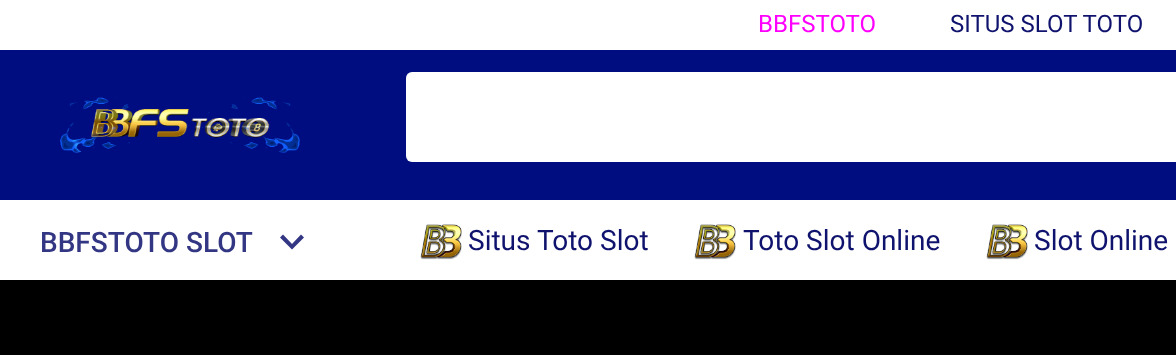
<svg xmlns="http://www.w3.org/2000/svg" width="1176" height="355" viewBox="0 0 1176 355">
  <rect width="100%" height="100%" fill="#000000"/>
  <rect x="0" y="0" width="1176" height="280" fill="#ffffff"/>
  <text x="758" y="32" font-family="Roboto" font-size="24" fill="#ff00ff">BBFSTOTO</text>
  <text x="950" y="32" font-family="Roboto" font-size="24" fill="#0f136d">SITUS SLOT TOTO</text>
  <rect x="0" y="50" width="1176" height="150" fill="#000d80"/>
  <image x="60" y="97" width="240" height="56" href="img1.png"/>
  <rect x="406" y="72" width="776" height="90" rx="6" fill="#ffffff"/>
  <text x="40" y="252" font-family="Roboto" font-size="28" font-weight="500" fill="#333683">BBFSTOTO SLOT</text>
  <path d="M301 234.5L304 237.5L292 249.5L280 237.5L283 234.5L292 244Z" fill="#333683"/>
  <image x="420" y="224" width="42" height="36" href="img2.png"/>
  <text x="468" y="250" font-family="Roboto" font-size="28" fill="#0f136d">Situs Toto Slot</text>
  <image x="694" y="224" width="42" height="36" href="img2.png"/>
  <text x="743" y="250" font-family="Roboto" font-size="28" fill="#0f136d">Toto Slot Online</text>
  <image x="986" y="224" width="42" height="36" href="img3.png"/>
  <text x="1034" y="250" font-family="Roboto" font-size="28" fill="#0f136d">Slot Online</text>
</svg>
